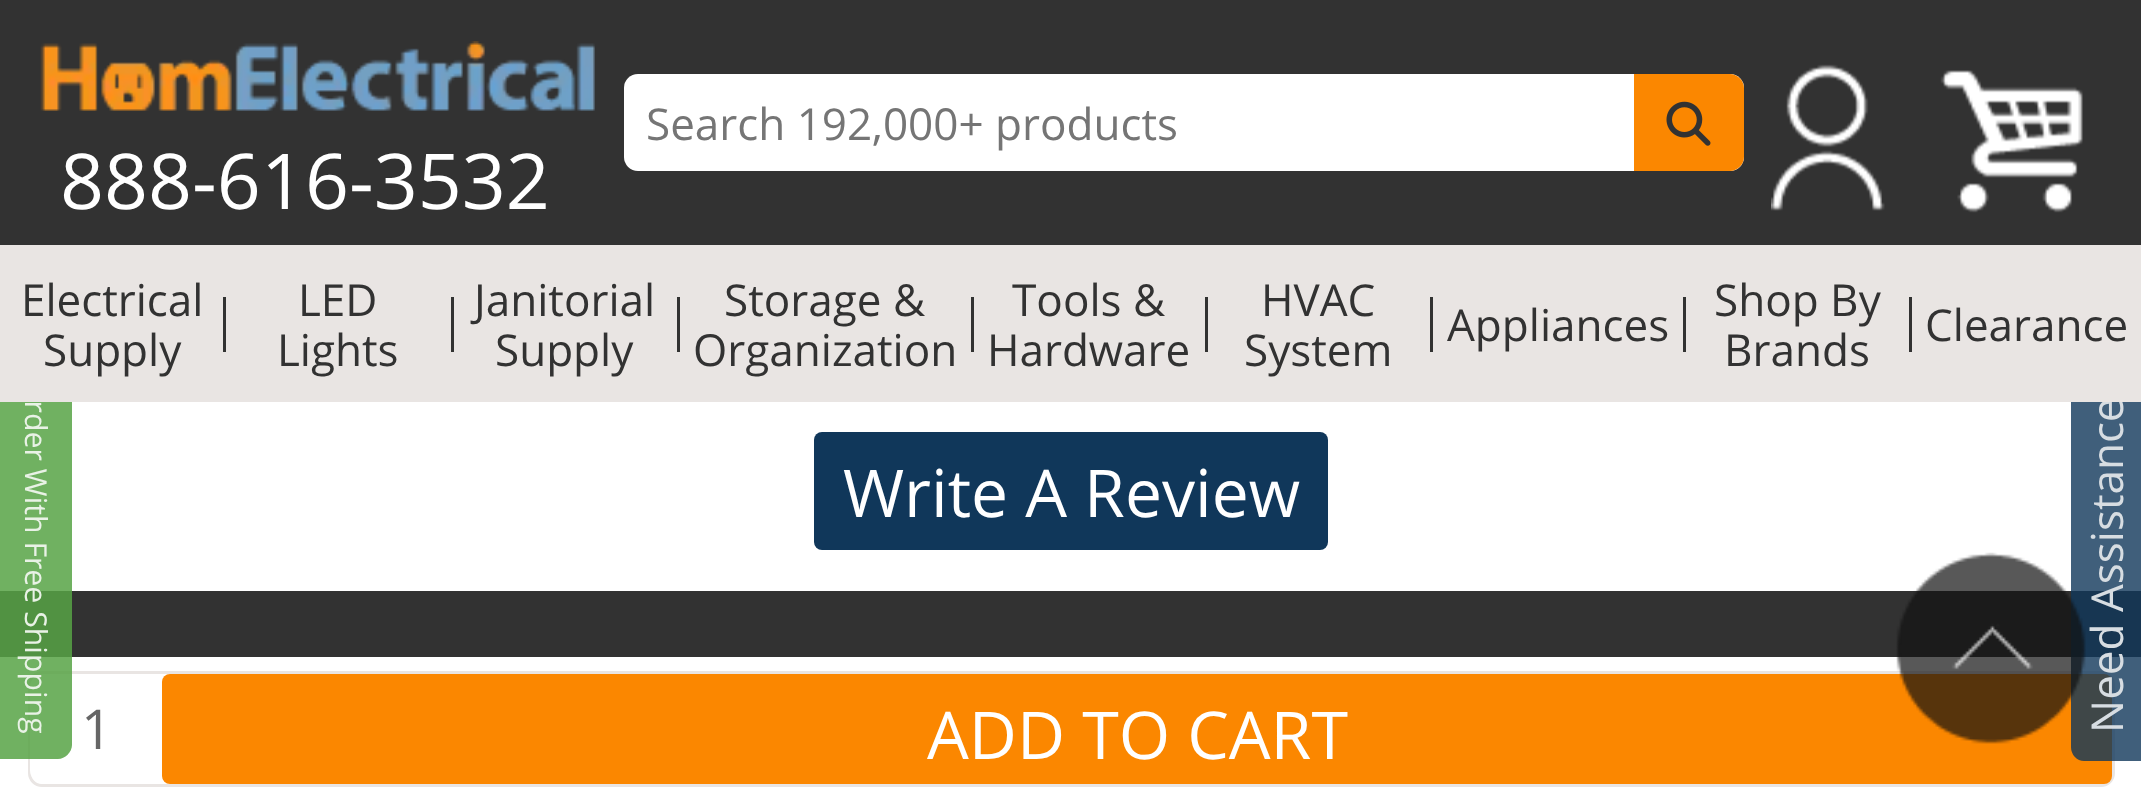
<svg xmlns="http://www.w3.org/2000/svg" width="2141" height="798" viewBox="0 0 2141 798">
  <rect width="100%" height="100%" fill="#ffffff"/>
  <rect x="0" y="0" width="2141" height="245" fill="#323232"/>
  <rect x="624" y="74" width="1120" height="97" rx="14" fill="#ffffff"/>
  <text x="646" y="140" font-family="Open Sans" font-size="44" fill="#757575">Search 192,000+ products</text>
  <path d="M1634 74H1730C1737.5 74 1744 80.5 1744 88V157C1744 164.5 1737.5 171 1730 171H1634Z" fill="#fb8700"/>
  <image x="1666" y="101" width="45" height="45" href="img1.png"/>
  <image x="1771" y="64" width="114" height="147" href="img2.png"/>
  <image x="1940" y="70" width="143" height="143" href="img3.png"/>
  <image x="40" y="41" width="555" height="70" href="img4.png"/>
  <text x="60" y="209" font-family="Open Sans" font-size="77" fill="#ffffff">888-616-3532</text>
  <rect x="29.5" y="672.5" width="2084" height="113" rx="12.5" fill="none" stroke="#e9e5e3" stroke-width="3"/>
  <rect x="30" y="674" width="132" height="110" rx="14" fill="#ffffff"/>
  <rect x="0" y="591" width="2141" height="66" fill="#323232"/>
  <path d="M72 365V745C72 752 65 759 58 759H0V352H58C65 352 72 358 72 365Z" fill="#57a345" fill-opacity="0.85"/>
  <text x="25" y="377" transform="rotate(90 25 377)" font-family="Open Sans" font-size="30.25" fill="#e9f2e6">Order With Free Shipping</text>
  <rect x="162" y="674" width="1950" height="110" rx="8" fill="#fb8700"/>
  <path d="M2071 747V365C2071 358 2077 352 2084 352H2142V761H2084C2077 761 2071 755 2071 747Z" fill="#10375a" fill-opacity="0.8"/>
  <text x="2123" y="733" transform="rotate(-90 2123 733)" font-family="Open Sans" font-size="44" fill="#d7dde2">Need Assistance?</text>
  <rect x="0" y="245" width="2141" height="157" fill="#e9e5e3"/>
  <text x="21" y="316" font-family="Open Sans" font-size="44" fill="#323232">Electrical</text>
  <text x="43" y="366" font-family="Open Sans" font-size="44" fill="#323232">Supply</text>
  <rect x="223" y="297" width="3" height="55" fill="#323232"/>
  <text x="298" y="316" font-family="Open Sans" font-size="44" fill="#323232">LED</text>
  <text x="277" y="366" font-family="Open Sans" font-size="44" fill="#323232">Lights</text>
  <rect x="451" y="297" width="3" height="55" fill="#323232"/>
  <text x="474" y="316" font-family="Open Sans" font-size="44" fill="#323232">Janitorial</text>
  <text x="495" y="366" font-family="Open Sans" font-size="44" fill="#323232">Supply</text>
  <rect x="677" y="297" width="3" height="55" fill="#323232"/>
  <text x="724" y="316" font-family="Open Sans" font-size="44" fill="#323232">Storage &amp;</text>
  <text x="693" y="366" font-family="Open Sans" font-size="44" fill="#323232">Organization</text>
  <rect x="971" y="297" width="3" height="55" fill="#323232"/>
  <text x="1012" y="316" font-family="Open Sans" font-size="44" fill="#323232">Tools &amp;</text>
  <text x="987" y="366" font-family="Open Sans" font-size="44" fill="#323232">Hardware</text>
  <rect x="1205" y="297" width="3" height="55" fill="#323232"/>
  <text x="1261" y="316" font-family="Open Sans" font-size="44" fill="#323232">HVAC</text>
  <text x="1244" y="366" font-family="Open Sans" font-size="44" fill="#323232">System</text>
  <rect x="1430" y="297" width="3" height="55" fill="#323232"/>
  <text x="1447" y="341" font-family="Open Sans" font-size="44" fill="#323232">Appliances</text>
  <rect x="1683" y="297" width="3" height="55" fill="#323232"/>
  <text x="1714" y="316" font-family="Open Sans" font-size="44" fill="#323232">Shop By</text>
  <text x="1724" y="366" font-family="Open Sans" font-size="44" fill="#323232">Brands</text>
  <rect x="1909" y="297" width="3" height="55" fill="#323232"/>
  <text x="1925" y="341" font-family="Open Sans" font-size="44" fill="#323232">Clearance</text>
  <rect x="814" y="432" width="514" height="118" rx="8" fill="#10375a"/>
  <text x="843" y="517" font-family="Open Sans" font-size="66" fill="#ffffff">Write A Review</text>
  <text x="81" y="749" font-family="Open Sans" font-size="55" fill="#666666">1</text>
  <text x="927" y="759" font-family="Open Sans" font-size="66" fill="#ffffff">ADD TO CART</text>
  <image x="1896" y="552" width="190" height="192" href="img5.png"/>
</svg>
